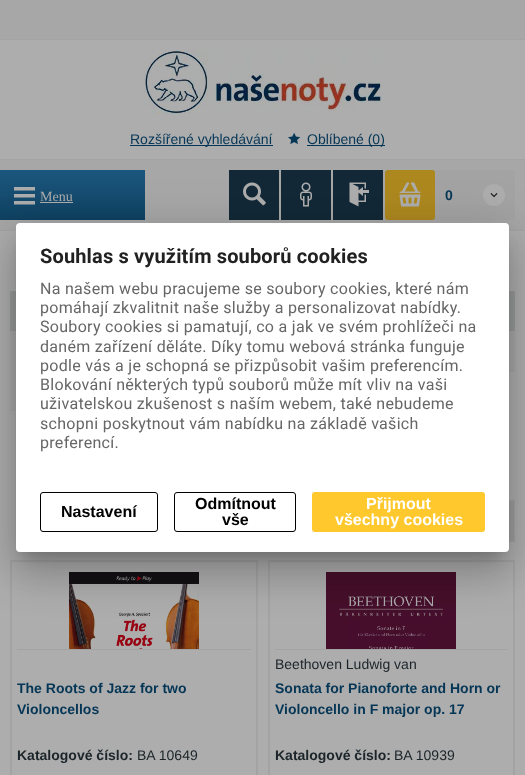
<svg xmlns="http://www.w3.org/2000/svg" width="525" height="775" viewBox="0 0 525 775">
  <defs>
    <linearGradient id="g1" gradientUnits="userSpaceOnUse" x1="73" y1="170" x2="73" y2="220"><stop offset="0" stop-color="#1c577e"/><stop offset="1" stop-color="#0e4161"/></linearGradient>
    <filter id="blur1" x="-50%" y="-200%" width="200%" height="500%"><feGaussianBlur stdDeviation="23"/></filter>
    <filter id="blur2" x="-50%" y="-200%" width="200%" height="500%"><feGaussianBlur stdDeviation="19"/></filter>
    <filter id="blur3" x="-50%" y="-200%" width="200%" height="500%"><feGaussianBlur stdDeviation="7.5"/></filter>
  </defs>
  <rect width="100%" height="100%" fill="#adadad"/>
  <rect x="0" y="0" width="525" height="39" fill="#a7a7a7"/>
  <rect x="0" y="39" width="525" height="1" fill="#a3a3a3"/>
  <image x="144" y="50" width="238" height="64" href="img1.png"/>
  <rect x="130" y="145" width="143" height="1" fill="#053656"/>
  <text x="130" y="144" font-family="Liberation Sans" font-size="14" fill="#053656">Rozšířené vyhledávání</text>
  <image x="288" y="132" width="13" height="12" href="img2.png"/>
  <rect x="307" y="145" width="78" height="1" fill="#053656"/>
  <text x="307" y="144" font-family="Liberation Sans" font-size="14" fill="#053656">Oblíbené (0)</text>
  <rect x="0" y="160" width="525" height="70" fill="#a7a7a7"/>
  <rect x="0" y="159" width="525" height="1" fill="#a3a3a3"/>
  <rect x="0" y="230" width="525" height="1" fill="#a3a3a3"/>
  <rect x="0" y="170" width="145" height="50" fill="url(#g1)"/>
  <image x="14" y="187" width="21" height="18" href="img3.png"/>
  <text x="40" y="201" font-family="Liberation Serif" font-size="14" fill="#adadad">Menu</text>
  <rect x="40" y="202" width="33" height="1" fill="#adadad"/>
  <rect x="229" y="170" width="50" height="50" fill="#122837"/>
  <image x="243" y="182" width="23" height="24" href="img4.png"/>
  <rect x="281" y="170" width="50" height="50" fill="#122837"/>
  <image x="300" y="182" width="12" height="25" href="img5.png"/>
  <rect x="333" y="170" width="50" height="50" fill="#122837"/>
  <image x="349" y="182" width="20" height="25" href="img6.png"/>
  <rect x="385" y="170" width="130" height="50" rx="3" fill="#a3a3a3"/>
  <rect x="385" y="170" width="50" height="50" rx="3" fill="#ad881e"/>
  <image x="399" y="182" width="22" height="25" href="img7.png"/>
  <text x="445" y="200" font-family="Liberation Sans" font-size="14" font-weight="bold" fill="#053656">0</text>
  <circle cx="494" cy="195" r="11" fill="#adadad"/>
  <image x="490" y="193" width="8" height="5" href="img8.png"/>
  <rect x="10" y="291" width="505" height="40" fill="#989a9a"/>
  <rect x="10" y="331" width="6" height="80" fill="#a7a7a7"/>
  <rect x="509" y="331" width="6" height="41" fill="#a7a7a7"/>
  <rect x="509" y="501" width="5" height="40" fill="#9e9e9e"/>
  <rect x="473.5" y="500.5" width="41" height="41" fill="none" stroke="#a3a3a3"/>
  <rect x="11" y="561" width="246" height="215" fill="none" stroke="#a3a3a3" stroke-width="2"/>
  <rect x="17" y="649" width="234" height="1" fill="#a3a3a3"/>
  <image x="69" y="572" width="130" height="77" href="img9.png"/>
  <text x="17" y="693" font-family="Liberation Sans" font-size="14" font-weight="bold" fill="#053656">The Roots of Jazz for two</text>
  <text x="17" y="714" font-family="Liberation Sans" font-size="14" font-weight="bold" fill="#053656">Violoncellos</text>
  <text x="17" y="760" font-family="Liberation Sans" font-size="14" font-weight="bold" fill="#1b2429">Katalogové číslo:</text>
  <text x="137" y="760" font-family="Liberation Sans" font-size="14" fill="#1b2429">BA 10649</text>
  <rect x="269" y="561" width="245" height="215" fill="none" stroke="#a3a3a3" stroke-width="2"/>
  <rect x="275" y="649" width="233" height="1" fill="#a3a3a3"/>
  <image x="326" y="572" width="130" height="77" href="img10.png"/>
  <text x="275" y="669" font-family="Liberation Sans" font-size="14" fill="#1b2429">Beethoven Ludwig van</text>
  <text x="275" y="693" font-family="Liberation Sans" font-size="14" font-weight="bold" fill="#053656">Sonata for Pianoforte and Horn or</text>
  <text x="275" y="714" font-family="Liberation Sans" font-size="14" font-weight="bold" fill="#053656">Violoncello in F major op. 17</text>
  <text x="275" y="760" font-family="Liberation Sans" font-size="14" font-weight="bold" fill="#1b2429">Katalogové číslo:</text>
  <text x="394" y="760" font-family="Liberation Sans" font-size="14" fill="#1b2429">BA 10939</text>
  <rect x="8" y="224" width="509" height="345" rx="12" fill="#000000" fill-opacity="0.12" filter="url(#blur1)"/>
  <rect x="13" y="244" width="499" height="335" rx="7" fill="#000000" fill-opacity="0.14" filter="url(#blur2)"/>
  <rect x="23" y="241" width="479" height="315" fill="#000000" fill-opacity="0.2" filter="url(#blur3)"/>
  <rect x="16" y="223" width="493" height="329" rx="4" fill="#ffffff"/>
  <text x="40" y="263" font-family="Roboto" font-size="20" font-weight="bold" letter-spacing="0.15" fill="#212121">Souhlas s využitím souborů cookies</text>
  <text x="40" y="294" font-family="Roboto" font-size="16" letter-spacing="0.3" fill="#666666">Na našem webu pracujeme se soubory cookies, které nám</text>
  <text x="40" y="313" font-family="Roboto" font-size="16" letter-spacing="0.3" fill="#666666">pomáhají zkvalitnit naše služby a personalizovat nabídky.</text>
  <text x="40" y="332" font-family="Roboto" font-size="16" letter-spacing="0.3" fill="#666666">Soubory cookies si pamatují, co a jak ve svém prohlížeči na</text>
  <text x="40" y="352" font-family="Roboto" font-size="16" letter-spacing="0.3" fill="#666666">daném zařízení děláte. Díky tomu webová stránka funguje</text>
  <text x="40" y="371" font-family="Roboto" font-size="16" letter-spacing="0.3" fill="#666666">podle vás a je schopná se přizpůsobit vašim preferencím.</text>
  <text x="40" y="390" font-family="Roboto" font-size="16" letter-spacing="0.3" fill="#666666">Blokování některých typů souborů může mít vliv na vaši</text>
  <text x="40" y="409" font-family="Roboto" font-size="16" letter-spacing="0.3" fill="#666666">uživatelskou zkušenost s naším webem, také nebudeme</text>
  <text x="40" y="429" font-family="Roboto" font-size="16" letter-spacing="0.3" fill="#666666">schopni poskytnout vám nabídku na základě vašich</text>
  <text x="40" y="448" font-family="Roboto" font-size="16" letter-spacing="0.3" fill="#666666">preferencí.</text>
  <rect x="40.5" y="492.5" width="117" height="39" rx="2.5" fill="none" stroke="#000000"/>
  <text x="61" y="517" font-family="Liberation Sans" font-size="16" font-weight="bold" fill="#000000">Nastavení</text>
  <rect x="174.5" y="492.5" width="121" height="39" rx="2.5" fill="none" stroke="#000000"/>
  <text x="195" y="509" font-family="Liberation Sans" font-size="16" font-weight="bold" fill="#000000">Odmítnout</text>
  <text x="222" y="525" font-family="Liberation Sans" font-size="16" font-weight="bold" fill="#000000">vše</text>
  <rect x="312" y="492" width="173" height="40" rx="3" fill="#ffc82c"/>
  <text x="366" y="509" font-family="Liberation Sans" font-size="16" font-weight="bold" fill="#ffffff">Přijmout</text>
  <text x="335" y="525" font-family="Liberation Sans" font-size="16" font-weight="bold" fill="#ffffff">všechny cookies</text>
</svg>
